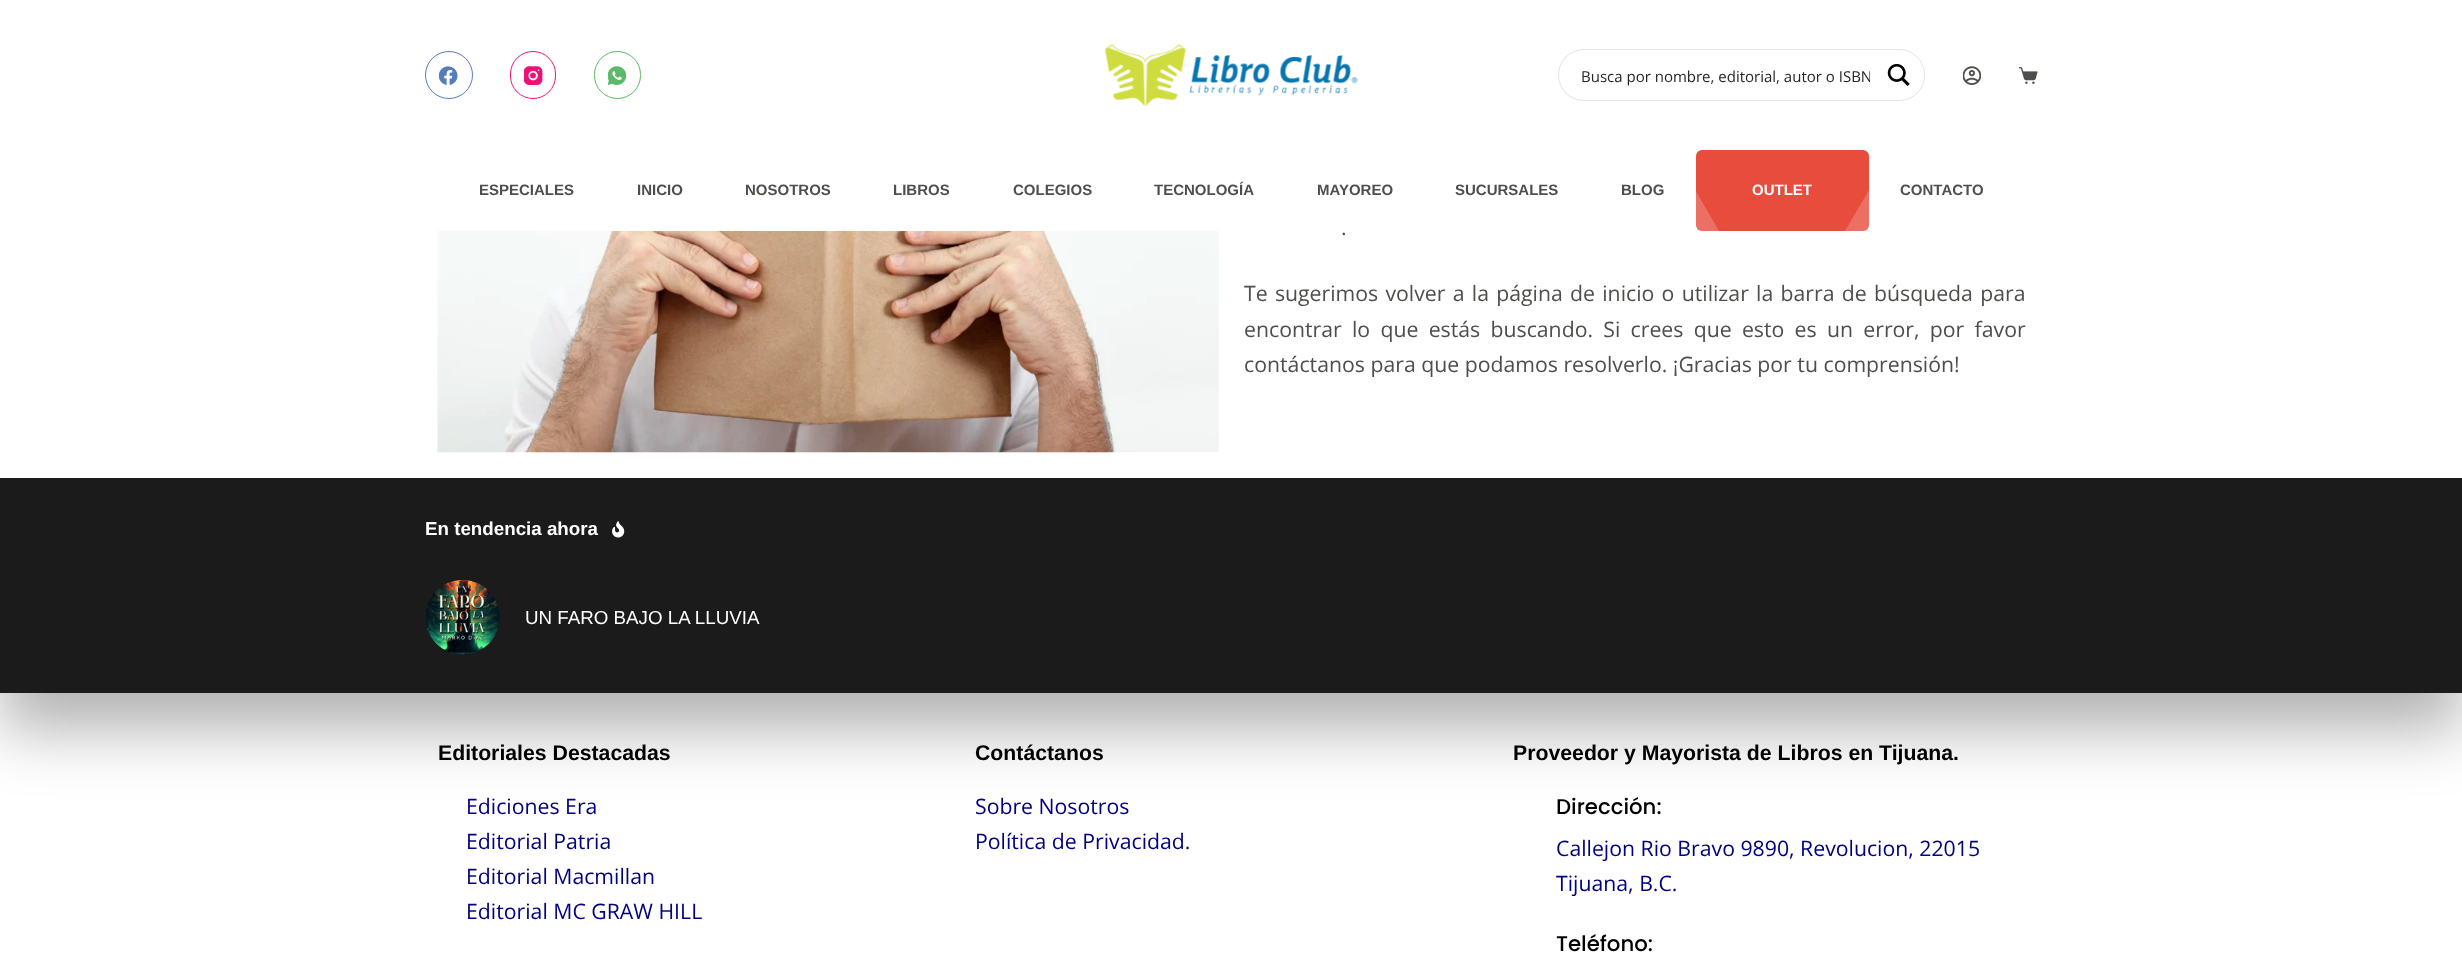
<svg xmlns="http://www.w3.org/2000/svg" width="2462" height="967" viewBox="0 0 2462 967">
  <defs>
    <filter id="blur1" x="-50%" y="-200%" width="200%" height="500%"><feGaussianBlur stdDeviation="31"/></filter>
    <clipPath id="clip1"><rect x="1580" y="66" width="290" height="22"/></clipPath>
  </defs>
  <rect width="100%" height="100%" fill="#ffffff"/>
  <rect x="0" y="-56" width="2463" height="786" fill="#000000" fill-opacity="0.3" filter="url(#blur1)"/>
  <rect x="0" y="0" width="2462" height="478" fill="#ffffff"/>
  <circle cx="449" cy="75" r="23.5" fill="none" stroke="#557dbc"/>
  <image x="439" y="66" width="19" height="19" href="img1.png"/>
  <rect x="510.5" y="51.5" width="45" height="47" rx="22.5" fill="none" stroke="#ed1376"/>
  <image x="524" y="66" width="19" height="19" href="img2.png"/>
  <rect x="594.5" y="51.5" width="46" height="47" rx="23" fill="none" stroke="#5bba67"/>
  <image x="608" y="66" width="18" height="19" href="img3.png"/>
  <image x="1104" y="43" width="254" height="64" href="img4.png"/>
  <rect x="1558.5" y="49.5" width="366" height="51" rx="25.5" fill="none" stroke="#e4e4e4"/>
  <g clip-path="url(#clip1)">
    <text x="1581" y="82" font-family="Open Sans" font-size="15" fill="#262626">Busca por nombre, editorial, autor o ISBN</text>
  </g>
  <image x="1887" y="63" width="23" height="23" href="img5.png"/>
  <image x="1963" y="66" width="18" height="19" href="img6.png"/>
  <image x="2019" y="67" width="19" height="17" href="img7.png"/>
  <text x="479" y="195" font-family="Liberation Sans" font-size="15" font-weight="bold" fill="#504e4a">ESPECIALES</text>
  <text x="637" y="195" font-family="Liberation Sans" font-size="15" font-weight="bold" fill="#504e4a">INICIO</text>
  <text x="745" y="195" font-family="Liberation Sans" font-size="15" font-weight="bold" fill="#504e4a">NOSOTROS</text>
  <text x="893" y="195" font-family="Liberation Sans" font-size="15" font-weight="bold" fill="#504e4a">LIBROS</text>
  <text x="1013" y="195" font-family="Liberation Sans" font-size="15" font-weight="bold" fill="#504e4a">COLEGIOS</text>
  <text x="1154" y="195" font-family="Liberation Sans" font-size="15" font-weight="bold" fill="#504e4a">TECNOLOGÍA</text>
  <text x="1317" y="195" font-family="Liberation Sans" font-size="15" font-weight="bold" fill="#504e4a">MAYOREO</text>
  <text x="1455" y="195" font-family="Liberation Sans" font-size="15" font-weight="bold" fill="#504e4a">SUCURSALES</text>
  <text x="1621" y="195" font-family="Liberation Sans" font-size="15" font-weight="bold" fill="#504e4a">BLOG</text>
  <rect x="1696" y="150" width="173" height="81" rx="6" fill="#e74c3c"/>
  <path d="M1702 231H1719L1696 191.5V225C1696 228.5 1698.5 231 1702 231Z" fill="#ffffff" fill-opacity="0.2"/>
  <text x="1752" y="195" font-family="Liberation Sans" font-size="15" font-weight="bold" fill="#ffffff">OUTLET</text>
  <path d="M1845 231H1863C1866 231 1869 228 1869 225V190Z" fill="#ffffff" fill-opacity="0.2"/>
  <text x="1900" y="195" font-family="Liberation Sans" font-size="15" font-weight="bold" fill="#504e4a">CONTACTO</text>
  <image x="437" y="231" width="782" height="222" href="img8.png"/>
  <text x="1341" y="235" font-family="Open Sans" font-size="21.25" fill="#504e4a">.</text>
  <text x="1244" y="301" word-spacing="1.75" font-family="Open Sans" font-size="21.25" fill="#504e4a">Te sugerimos volver a la página de inicio o utilizar la barra de búsqueda para</text>
  <text x="1244" y="337" word-spacing="4.75" font-family="Open Sans" font-size="21.25" fill="#504e4a">encontrar lo que estás buscando. Si crees que esto es un error, por favor</text>
  <text x="1244" y="372" font-family="Open Sans" font-size="21.25" fill="#504e4a">contáctanos para que podamos resolverlo. ¡Gracias por tu comprensión!</text>
  <rect x="0" y="478" width="2462" height="215" fill="#1b1b1b"/>
  <text x="425" y="535" font-family="Liberation Sans" font-size="18.75" font-weight="bold" fill="#ffffff">En tendencia ahora</text>
  <image x="612" y="521" width="13" height="17" href="img9.png"/>
  <image x="425" y="580" width="75" height="75" href="img10.png"/>
  <text x="525" y="624" font-family="Liberation Sans" font-size="18.75" fill="#ffffff">UN FARO BAJO LA LLUVIA</text>
  <text x="438" y="760" font-family="Liberation Sans" font-size="21.25" font-weight="bold" fill="#000000">Editoriales Destacadas</text>
  <text x="466" y="814" font-family="Open Sans" font-size="21.25" fill="#000080">Ediciones Era</text>
  <text x="466" y="849" font-family="Open Sans" font-size="21.25" fill="#000080">Editorial Patria</text>
  <text x="466" y="884" font-family="Open Sans" font-size="21.25" fill="#000080">Editorial Macmillan</text>
  <text x="466" y="919" font-family="Open Sans" font-size="21.25" fill="#000080">Editorial MC GRAW HILL</text>
  <text x="975" y="760" font-family="Liberation Sans" font-size="21.25" font-weight="bold" fill="#000000">Contáctanos</text>
  <text x="975" y="814" font-family="Open Sans" font-size="21.25" fill="#000080">Sobre Nosotros</text>
  <text x="975" y="849" font-family="Open Sans" font-size="21.25" fill="#000080">Política de Privacidad.</text>
  <text x="1513" y="760" font-family="Liberation Sans" font-size="21.25" font-weight="bold" fill="#000000">Proveedor y Mayorista de Libros en Tijuana.</text>
  <text x="1556" y="814" font-family="Poppins" font-size="21.25" font-weight="500" fill="#000000">Dirección:</text>
  <text x="1556" y="856" font-family="Open Sans" font-size="21.25" fill="#000080">Callejon Rio Bravo 9890, Revolucion, 22015</text>
  <text x="1556" y="891" font-family="Open Sans" font-size="21.25" fill="#000080">Tijuana, B.C.</text>
  <text x="1556" y="951" font-family="Poppins" font-size="21.25" font-weight="500" fill="#000000">Teléfono:</text>
</svg>
